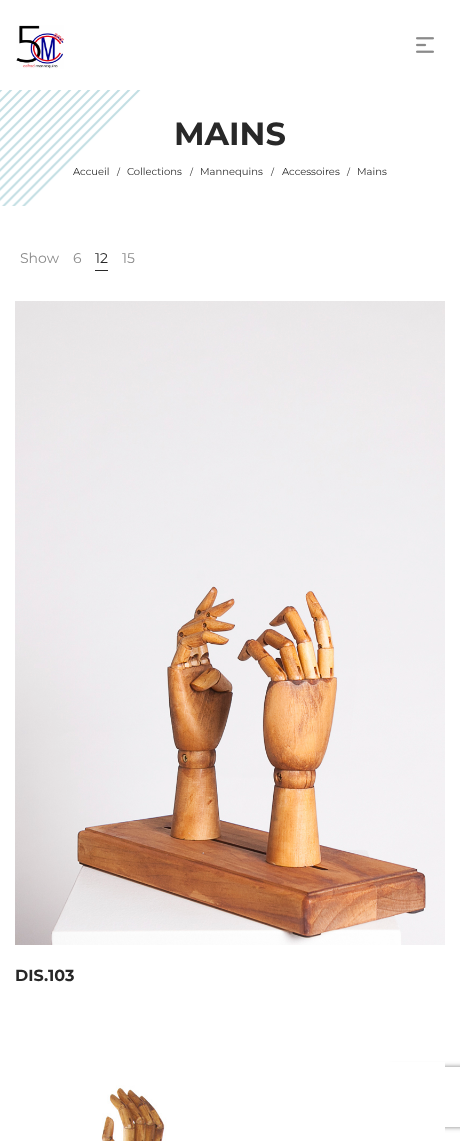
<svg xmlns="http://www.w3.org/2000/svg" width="460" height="1141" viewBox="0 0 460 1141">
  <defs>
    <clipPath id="clip1"><path d="M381 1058H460V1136H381ZM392 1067H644C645 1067 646 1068 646 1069V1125C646 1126 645 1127 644 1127H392C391 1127 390 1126 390 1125V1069C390 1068 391 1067 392 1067Z" clip-rule="evenodd"/></clipPath>
    <filter id="blur1" x="-50%" y="-200%" width="200%" height="500%"><feGaussianBlur stdDeviation="2.5"/></filter>
  </defs>
  <rect width="100%" height="100%" fill="#ffffff"/>
  <image x="16" y="25" width="48" height="44" href="img1.png"/>
  <image x="416" y="37" width="18" height="16" href="img2.png"/>
  <image x="0" y="90" width="141" height="116" href="img3.png"/>
  <text x="174" y="145" font-family="Montserrat" font-size="32" font-weight="100" fill="#282828">MAINS</text>
  <text x="73" y="175" font-family="Montserrat" font-size="10" fill="#282828">Accueil</text>
  <text x="117" y="175" font-family="Montserrat" font-size="9" fill="#282828">/</text>
  <text x="127" y="175" font-family="Montserrat" font-size="10" fill="#282828">Collections</text>
  <text x="190" y="175" font-family="Montserrat" font-size="9" fill="#282828">/</text>
  <text x="200" y="175" font-family="Montserrat" font-size="10" fill="#282828">Mannequins</text>
  <text x="271" y="175" font-family="Montserrat" font-size="9" fill="#282828">/</text>
  <text x="282" y="175" font-family="Montserrat" font-size="10" fill="#282828">Accessoires</text>
  <text x="347" y="175" font-family="Montserrat" font-size="9" fill="#282828">/</text>
  <text x="357" y="175" font-family="Montserrat" font-size="10" fill="#282828">Mains</text>
  <text x="20" y="263" font-family="Montserrat" font-size="14" fill="#8a8a8a">Show</text>
  <text x="73" y="263" font-family="Montserrat" font-size="14" fill="#8a8a8a">6</text>
  <rect x="95" y="270" width="13" height="1" fill="#282828"/>
  <text x="95" y="263" font-family="Montserrat" font-size="14" fill="#282828">12</text>
  <text x="122" y="263" font-family="Montserrat" font-size="14" fill="#8a8a8a">15</text>
  <image x="15" y="301" width="430" height="644" href="img4.png"/>
  <text x="15" y="981" font-family="Montserrat" font-size="16" font-weight="100" fill="#282828">DIS.103</text>
  <g clip-path="url(#clip1)">
    <rect x="390" y="1067" width="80" height="60" rx="2" fill="#808080" filter="url(#blur1)"/>
  </g>
  <image x="101" y="1062" width="344" height="79" href="img5.png"/>
</svg>
